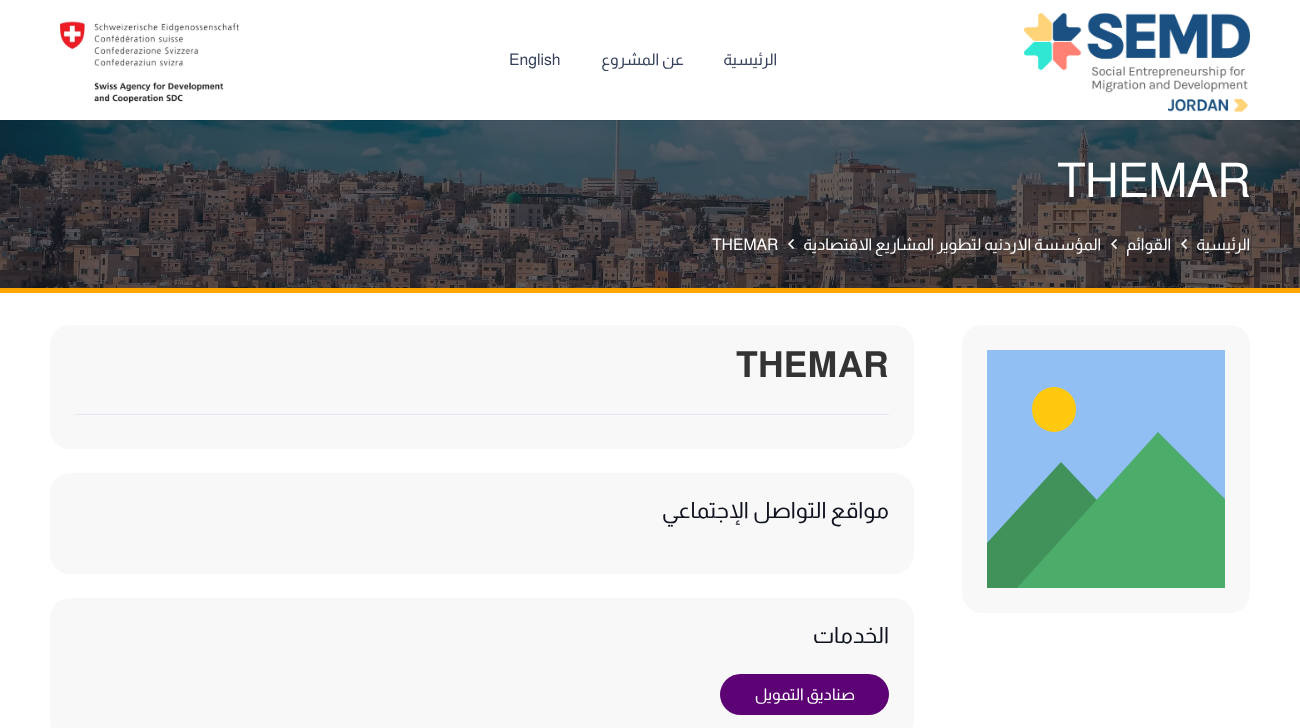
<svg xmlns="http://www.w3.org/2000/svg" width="1300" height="728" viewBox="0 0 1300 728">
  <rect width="100%" height="100%" fill="#ffffff"/>
  <image x="0" y="120" width="1300" height="168" href="img3.png"/>
  <rect x="0" y="120" width="1300" height="1" fill="#000000" fill-opacity="0.08"/>
  <image x="1024" y="13" width="226" height="100" href="img1.png"/>
  <text x="777" y="65" font-family="Almarai" font-size="16" direction="rtl" fill="#35415b">الرئيسية</text>
  <text x="684" y="65" font-family="Almarai" font-size="16" direction="rtl" fill="#35415b">عن المشروع</text>
  <text x="509" y="65" font-family="Almarai" font-size="16" fill="#35415b">English</text>
  <image x="59" y="21" width="180" height="83" href="img2.png"/>
  <rect x="0" y="288" width="1300" height="5" fill="#ffa500"/>
  <text x="1057" y="197" font-family="Almarai" font-size="48" letter-spacing="-1" fill="#ffffff">THEMAR</text>
  <text x="1250" y="250" font-family="Almarai" font-size="16" direction="rtl" fill="#ffffff">الرئيسية</text>
  <image x="1181" y="239" width="6" height="10" href="img4.png"/>
  <text x="1171" y="250" font-family="Almarai" font-size="16" direction="rtl" fill="#ffffff">القوائم</text>
  <image x="1111" y="239" width="6" height="10" href="img5.png"/>
  <text x="1101" y="250" font-family="Almarai" font-size="16" direction="rtl" fill="#ffffff">المؤسسة الاردنيه لتطوير المشاريع الاقتصادية</text>
  <image x="788" y="239" width="6" height="10" href="img6.png"/>
  <text x="712" y="250" font-family="Almarai" font-size="16" fill="#ffffff">THEMAR</text>
  <rect x="962" y="325" width="288" height="288" rx="20" fill="#f8f8f8"/>
  <rect x="987" y="350" width="238" height="193" fill="#91bff4"/>
  <rect x="1032" y="387" width="44" height="45" rx="22" fill="#ffc90f"/>
  <path d="M1180 588H987V543L1061 462Z" fill="#40915a"/>
  <path d="M1225 499V588H1017L1158 432Z" fill="#4cad6b"/>
  <rect x="50" y="325" width="864" height="124" rx="20" fill="#f8f8f8"/>
  <text x="736" y="377" font-family="Almarai" font-size="36" font-weight="bold" fill="#333333">THEMAR</text>
  <rect x="75" y="414" width="814" height="1" fill="#e3e7f0"/>
  <rect x="50" y="473" width="864" height="101" rx="20" fill="#f8f8f8"/>
  <text x="889" y="518" font-family="Almarai" font-size="22.4" direction="rtl" fill="#0f131f">مواقع التواصل الإجتماعي</text>
  <rect x="50" y="598" width="864" height="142" rx="20" fill="#f8f8f8"/>
  <text x="889" y="643" font-family="Almarai" font-size="22.4" direction="rtl" fill="#0f131f">الخدمات</text>
  <rect x="720" y="674" width="169" height="41" rx="20.5" fill="#5d0274"/>
  <text x="855" y="700" font-family="Almarai" font-size="16" direction="rtl" fill="#ffffff">صناديق التمويل</text>
</svg>
